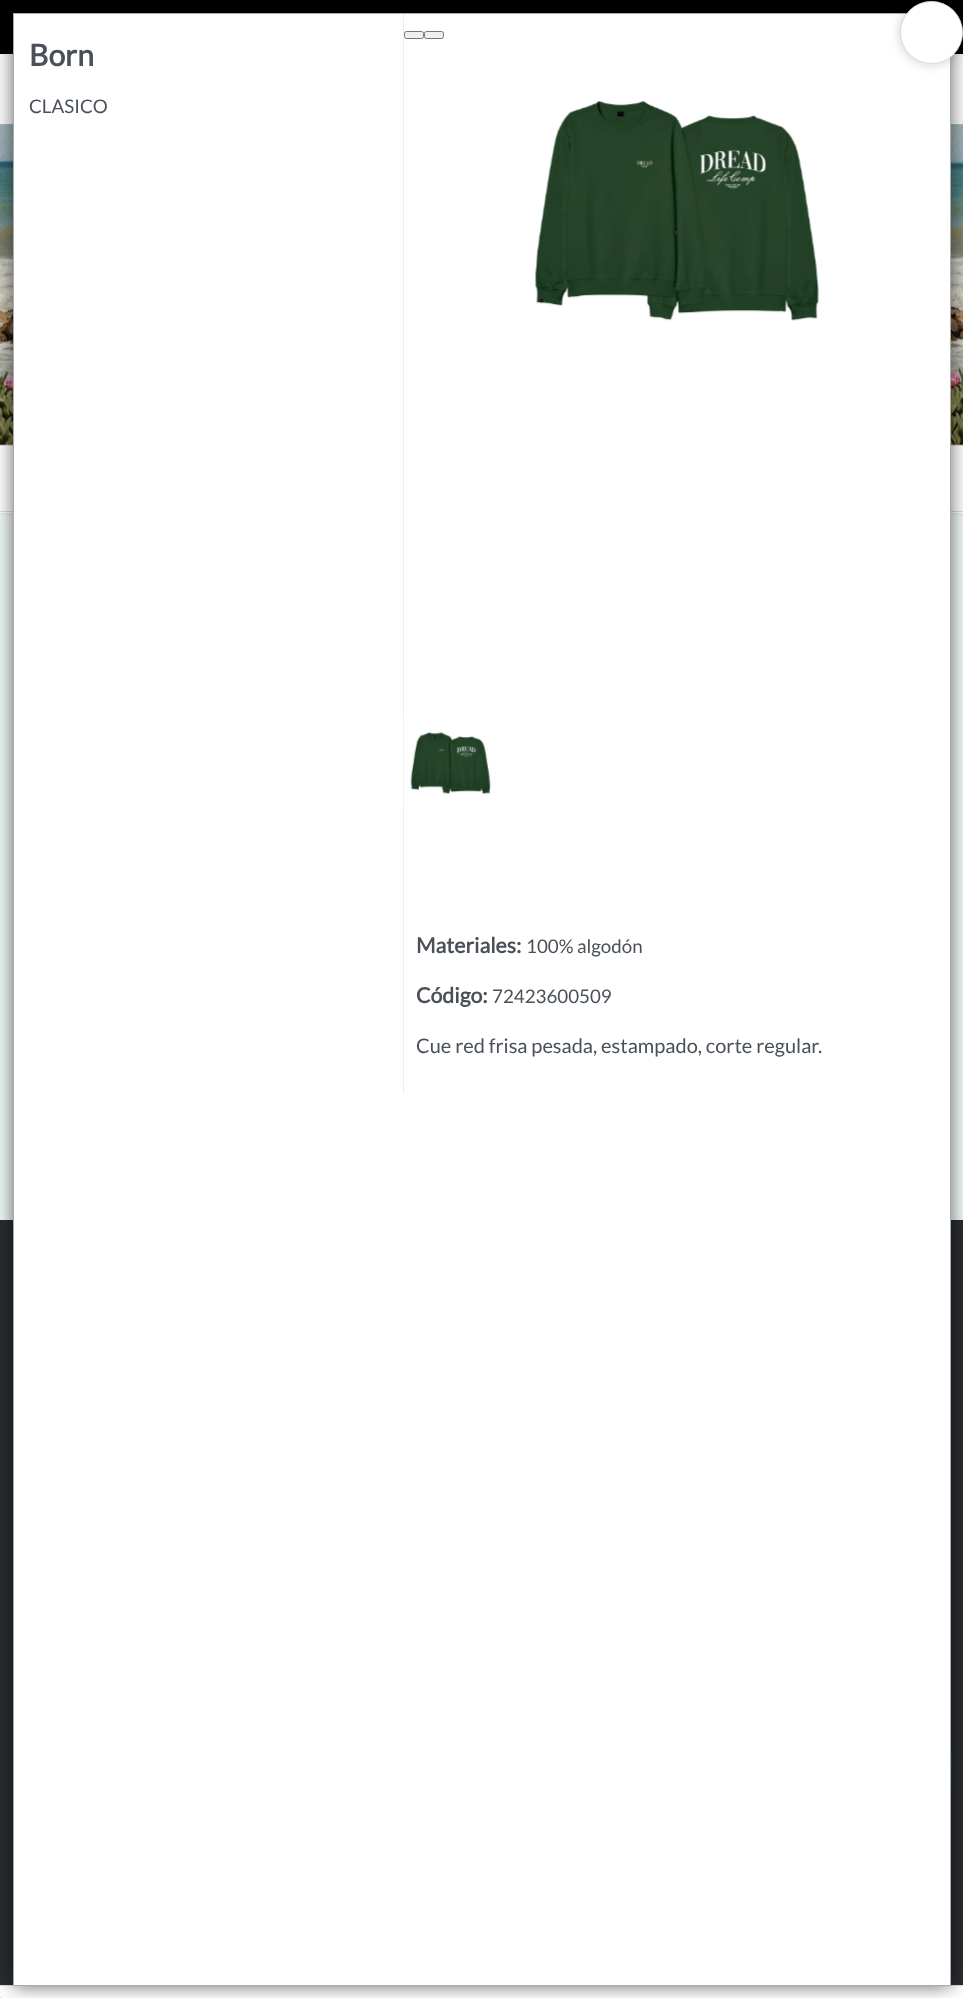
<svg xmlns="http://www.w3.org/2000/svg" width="963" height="1998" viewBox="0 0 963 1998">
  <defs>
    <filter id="blur1" x="-50%" y="-200%" width="200%" height="500%"><feGaussianBlur stdDeviation="2.5"/></filter>
    <filter id="blur2" x="-50%" y="-200%" width="200%" height="500%"><feGaussianBlur stdDeviation="9.5"/></filter>
    <filter id="blur3" x="-50%" y="-200%" width="200%" height="500%"><feGaussianBlur stdDeviation="6"/></filter>
  </defs>
  <rect width="100%" height="100%" fill="#f0f8f8"/>
  <rect x="0" y="0" width="963" height="54" fill="#000000"/>
  <rect x="0" y="54" width="963" height="70" fill="#fcfcfc"/>
  <image x="0" y="124" width="963" height="321" href="img1.png"/>
  <rect x="0" y="445" width="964" height="68" fill="#000000" fill-opacity="0.1" filter="url(#blur1)"/>
  <rect x="0" y="446" width="963" height="67" fill="#ffffff"/>
  <rect x="0" y="445" width="963" height="1" fill="#dddddd"/>
  <rect x="0" y="511" width="963" height="1" fill="#dddddd"/>
  <rect x="0" y="1220" width="963" height="778" fill="#292c2f"/>
  <path d="M0 1985H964V1996.5C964 1998 963 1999 961.5 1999H2.5C1 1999 0 1998 0 1996.5Z" fill="#ffffff"/>
  <rect x="0" y="1985" width="963" height="1" fill="#dddddd"/>
  <path d="M949.5 1749.5C951 1751.5 950 1768 950 1771V1784.5C950 1795.5 951 1794 939.5 1794H908C904.5 1794 900.5 1795.5 898 1793" fill="none" stroke="#2f558a" stroke-width="2.5"/>
  <rect x="13" y="13" width="938" height="1973" fill="#000000" fill-opacity="0.6" filter="url(#blur2)"/>
  <rect x="13.5" y="13.5" width="937" height="1972" fill="#ffffff" stroke="#aaaaaa"/>
  <rect x="403" y="14" width="1" height="1079" fill="#eeeeee"/>
  <text x="29" y="66" font-family="Lato" font-size="30" font-weight="bold" fill="#495057">Born</text>
  <text x="29" y="113" font-family="Lato" font-size="18.75" fill="#495057">CLASICO</text>
  <rect x="404.5" y="31.5" width="19" height="7" rx="2" fill="#efefef" stroke="#767676"/>
  <rect x="424.5" y="31.5" width="19" height="7" rx="2" fill="#efefef" stroke="#767676"/>
  <image x="535" y="100" width="284" height="221" href="img2.png"/>
  <image x="403" y="717" width="88" height="92" href="img3.png"/>
  <text x="416" y="953" font-family="Lato" font-size="21.25" font-weight="bold" fill="#495057">Materiales:</text>
  <text x="526" y="953" font-family="Lato" font-size="18.75" fill="#495057">100% algodón</text>
  <text x="416" y="1003" font-family="Lato" font-size="21.25" font-weight="bold" fill="#495057">Código:</text>
  <text x="492" y="1003" font-family="Lato" font-size="18.75" fill="#495057">72423600509</text>
  <text x="416" y="1053" font-family="Lato" font-size="20" fill="#495057">Cue red frisa pesada, estampado, corte regular.</text>
  <rect x="900" y="1" width="63" height="63" rx="31.5" fill="#000000" fill-opacity="0.2" filter="url(#blur3)"/>
  <circle cx="931.5" cy="32.5" r="31" fill="#ffffff" stroke="#dddddd"/>
</svg>
